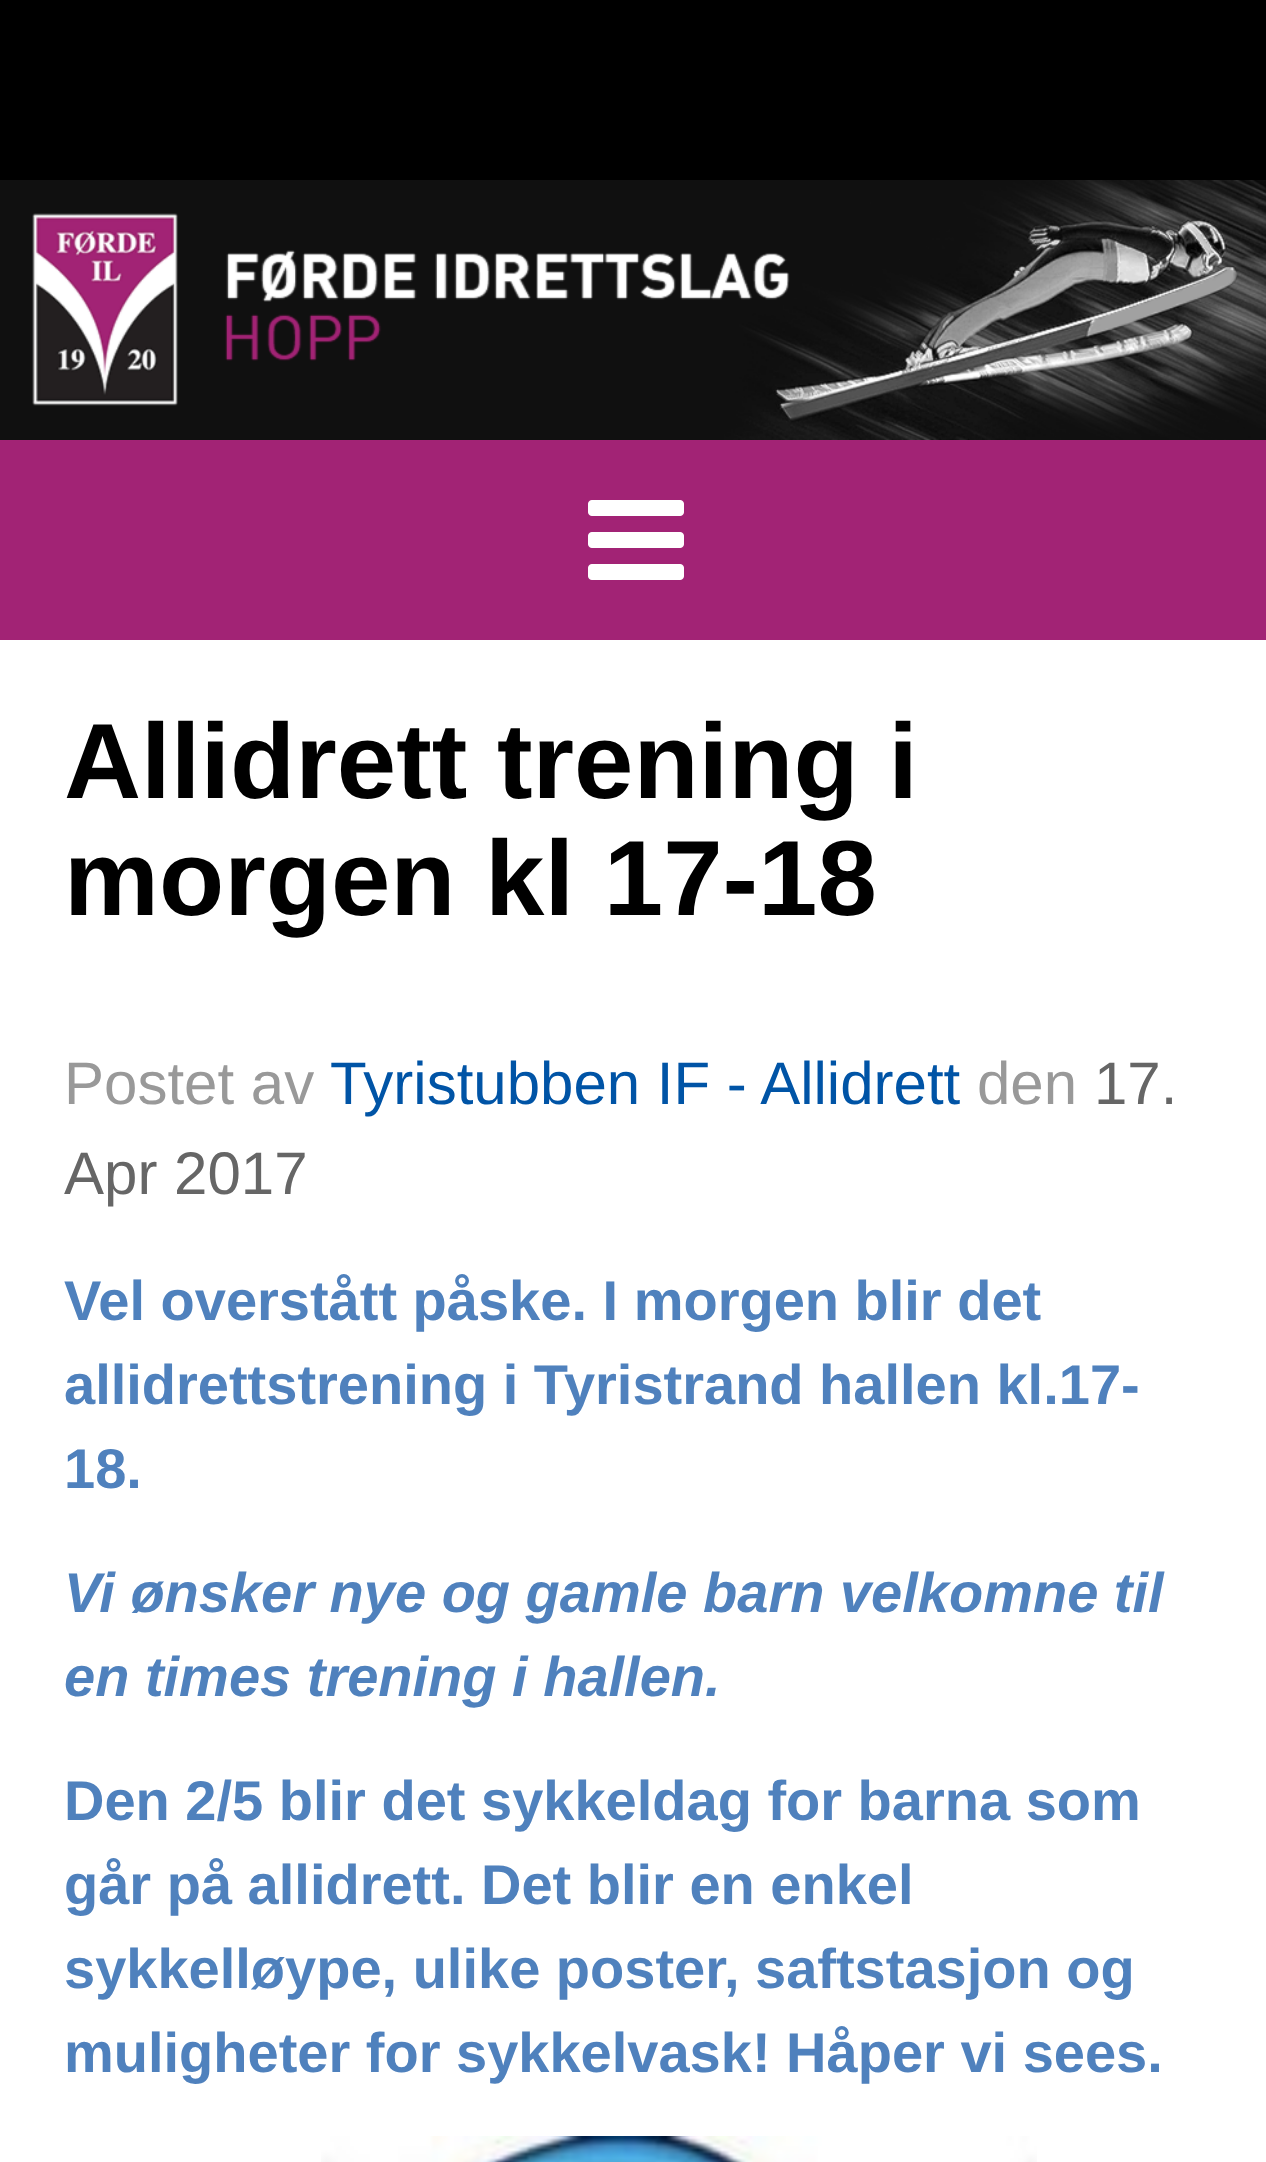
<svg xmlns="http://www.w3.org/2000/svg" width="1266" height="2162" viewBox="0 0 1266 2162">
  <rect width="100%" height="100%" fill="#000000"/>
  <image x="0" y="180" width="1266" height="260" href="img1.png"/>
  <rect x="0" y="440" width="1266" height="200" fill="#a22375"/>
  <image x="588" y="500" width="96" height="80" href="img2.png"/>
  <rect x="0" y="640" width="1266" height="1522" fill="#ffffff"/>
  <text x="64" y="798" font-family="Liberation Sans" font-size="106.75" font-weight="bold" fill="#000000">Allidrett trening i</text>
  <text x="64" y="915" font-family="Liberation Sans" font-size="106.75" font-weight="bold" fill="#000000">morgen kl 17-18</text>
  <text x="64" y="1104" font-family="Liberation Sans" font-size="60" fill="#999999">Postet av</text>
  <text x="330" y="1104" font-family="Liberation Sans" font-size="60" fill="#0054a6">Tyristubben IF - Allidrett</text>
  <text x="977" y="1104" font-family="Liberation Sans" font-size="60" fill="#999999">den</text>
  <text x="1094" y="1104" font-family="Liberation Sans" font-size="60" fill="#666666">17.</text>
  <text x="64" y="1194" font-family="Liberation Sans" font-size="60" fill="#666666">Apr 2017</text>
  <text x="64" y="1320" font-family="Liberation Sans" font-size="56" font-weight="bold" fill="#4f81bd">Vel overstått påske. I morgen blir det</text>
  <text x="64" y="1404" font-family="Liberation Sans" font-size="56" font-weight="bold" fill="#4f81bd">allidrettstrening i Tyristrand hallen kl.17-</text>
  <text x="64" y="1488" font-family="Liberation Sans" font-size="56" font-weight="bold" fill="#4f81bd">18.</text>
  <text x="64" y="1612" font-family="Liberation Sans" font-size="56" font-weight="bold" font-style="italic" fill="#4f81bd">Vi ønsker nye og gamle barn velkomne til</text>
  <text x="64" y="1696" font-family="Liberation Sans" font-size="56" font-weight="bold" font-style="italic" fill="#4f81bd">en times trening i hallen.</text>
  <text x="64" y="1820" font-family="Liberation Sans" font-size="56" font-weight="bold" fill="#4f81bd">Den 2/5 blir det sykkeldag for barna som</text>
  <text x="64" y="1904" font-family="Liberation Sans" font-size="56" font-weight="bold" fill="#4f81bd">går på allidrett. Det blir en enkel</text>
  <text x="64" y="1988" font-family="Liberation Sans" font-size="56" font-weight="bold" fill="#4f81bd">sykkelløype, ulike poster, saftstasjon og</text>
  <text x="64" y="2072" font-family="Liberation Sans" font-size="56" font-weight="bold" fill="#4f81bd">muligheter for sykkelvask! Håper vi sees.</text>
  <image x="321" y="2136" width="716" height="26" href="img3.png"/>
</svg>
